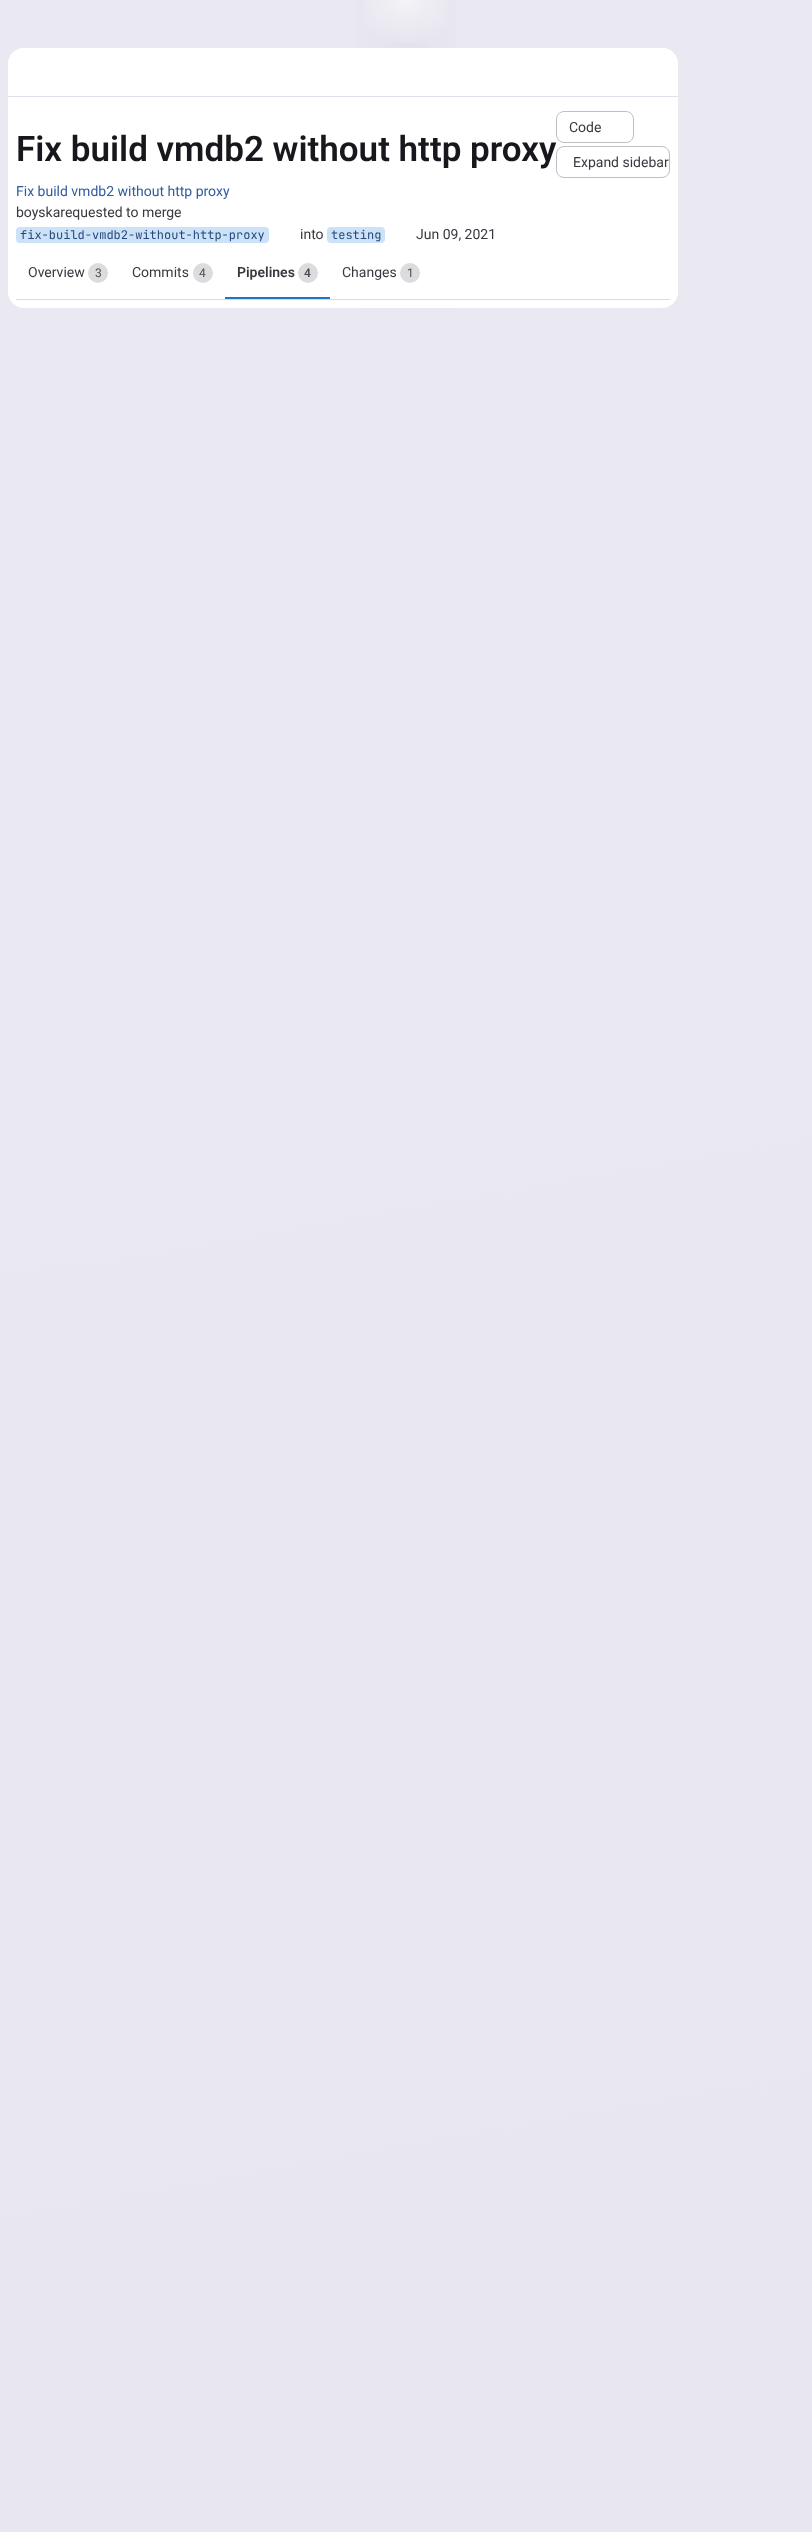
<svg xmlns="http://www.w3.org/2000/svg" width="812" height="2532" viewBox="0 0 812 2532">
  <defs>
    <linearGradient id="g1" gradientUnits="userSpaceOnUse" x1="635" y1="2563" x2="177" y2="-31"><stop offset="0" stop-color="#e8e6f0"/><stop offset="0.7" stop-color="#eae9f2"/></linearGradient>
    <radialGradient id="g2" gradientUnits="userSpaceOnUse" cx="0" cy="0" r="1" gradientTransform="matrix(406 0 0 2532 406 0)"><stop offset="0" stop-color="#e4e2ed"/><stop offset="0.17" stop-color="#e4e2ed" stop-opacity="0"/></radialGradient>
    <radialGradient id="g3" gradientUnits="userSpaceOnUse" cx="0" cy="0" r="1" gradientTransform="matrix(406 0 0 2532 406 0)"><stop offset="0" stop-color="#e4e2ec"/><stop offset="0.12" stop-color="#e4e2ec" stop-opacity="0"/></radialGradient>
    <radialGradient id="g4" gradientUnits="userSpaceOnUse" cx="406" cy="0" r="2564"><stop offset="0" stop-color="#ffffff" stop-opacity="0.6"/><stop offset="0.02" stop-color="#ffffff" stop-opacity="0"/></radialGradient>
  </defs>
  <rect width="100%" height="100%" fill="#ffffff"/>
  <rect x="0" y="0" width="812" height="2532" fill="url(#g1)"/>
  <rect x="356" y="0" width="100" height="309" fill="url(#g2)"/>
  <rect x="386" y="0" width="40" height="48" fill="url(#g3)"/>
  <rect x="364" y="0" width="84" height="43" fill="url(#g4)"/>
  <rect x="8" y="48" width="670" height="260" rx="16" fill="#ffffff"/>
  <path d="M24 48H662C671 48 678 55 678 64V97H8V64C8 55 15 48 24 48Z" fill="#ffffff"/>
  <rect x="8" y="96" width="670" height="1" fill="#e1dfec"/>
  <text x="16" y="161" font-family="Roboto" font-size="35" font-weight="600" fill="#18171d">Fix build vmdb2 without http proxy</text>
  <rect x="556.5" y="111.5" width="77" height="31" rx="7.5" fill="none" stroke="#bfbfc3"/>
  <text x="569" y="132" font-family="Roboto" font-size="14" fill="#3a383f">Code</text>
  <rect x="556.5" y="146.5" width="113" height="31" rx="7.5" fill="none" stroke="#bfbfc3"/>
  <text x="573" y="167" font-family="Roboto" font-size="14" fill="#3a383f">Expand sidebar</text>
  <text x="16" y="196" font-family="Roboto" font-size="14" fill="#2f5ca0">Fix build vmdb2 without http proxy</text>
  <text x="16" y="217" font-family="Roboto" font-size="14" fill="#3a383f">boyskarequested to merge</text>
  <rect x="16" y="227" width="253" height="16" rx="4" fill="#cbe2f9"/>
  <text x="20" y="239" font-family="JetBrains Mono" font-size="12" fill="#284779">fix-build-vmdb2-without-http-proxy</text>
  <text x="300" y="239" font-family="Roboto" font-size="14" fill="#3a383f">into</text>
  <rect x="327" y="227" width="58" height="16" rx="4" fill="#cbe2f9"/>
  <text x="331" y="239" font-family="JetBrains Mono" font-size="12" fill="#284779">testing</text>
  <text x="416" y="239" font-family="Roboto" font-size="14" fill="#3a383f">Jun 09, 2021</text>
  <rect x="16" y="299" width="654" height="1" fill="#dcdcde"/>
  <text x="28" y="277" font-family="Roboto" font-size="14" fill="#3a383f">Overview</text>
  <circle cx="98" cy="273" r="10" fill="#dcdcde"/>
  <text x="95" y="277" font-family="Roboto" font-size="12" fill="#4c4b51">3</text>
  <text x="132" y="277" font-family="Roboto" font-size="14" fill="#3a383f">Commits</text>
  <circle cx="203" cy="273" r="10" fill="#dcdcde"/>
  <text x="199" y="277" font-family="Roboto" font-size="12" fill="#4c4b51">4</text>
  <rect x="225" y="297" width="105" height="2" fill="#1f75cb"/>
  <text x="237" y="277" font-family="Roboto" font-size="14" font-weight="600" fill="#3a383f">Pipelines</text>
  <circle cx="308" cy="273" r="10" fill="#dcdcde"/>
  <text x="304" y="277" font-family="Roboto" font-size="12" font-weight="600" fill="#4c4b51">4</text>
  <text x="342" y="277" font-family="Roboto" font-size="14" fill="#3a383f">Changes</text>
  <circle cx="410" cy="273" r="10" fill="#dcdcde"/>
  <text x="407" y="277" font-family="Roboto" font-size="12" fill="#4c4b51">1</text>
</svg>
